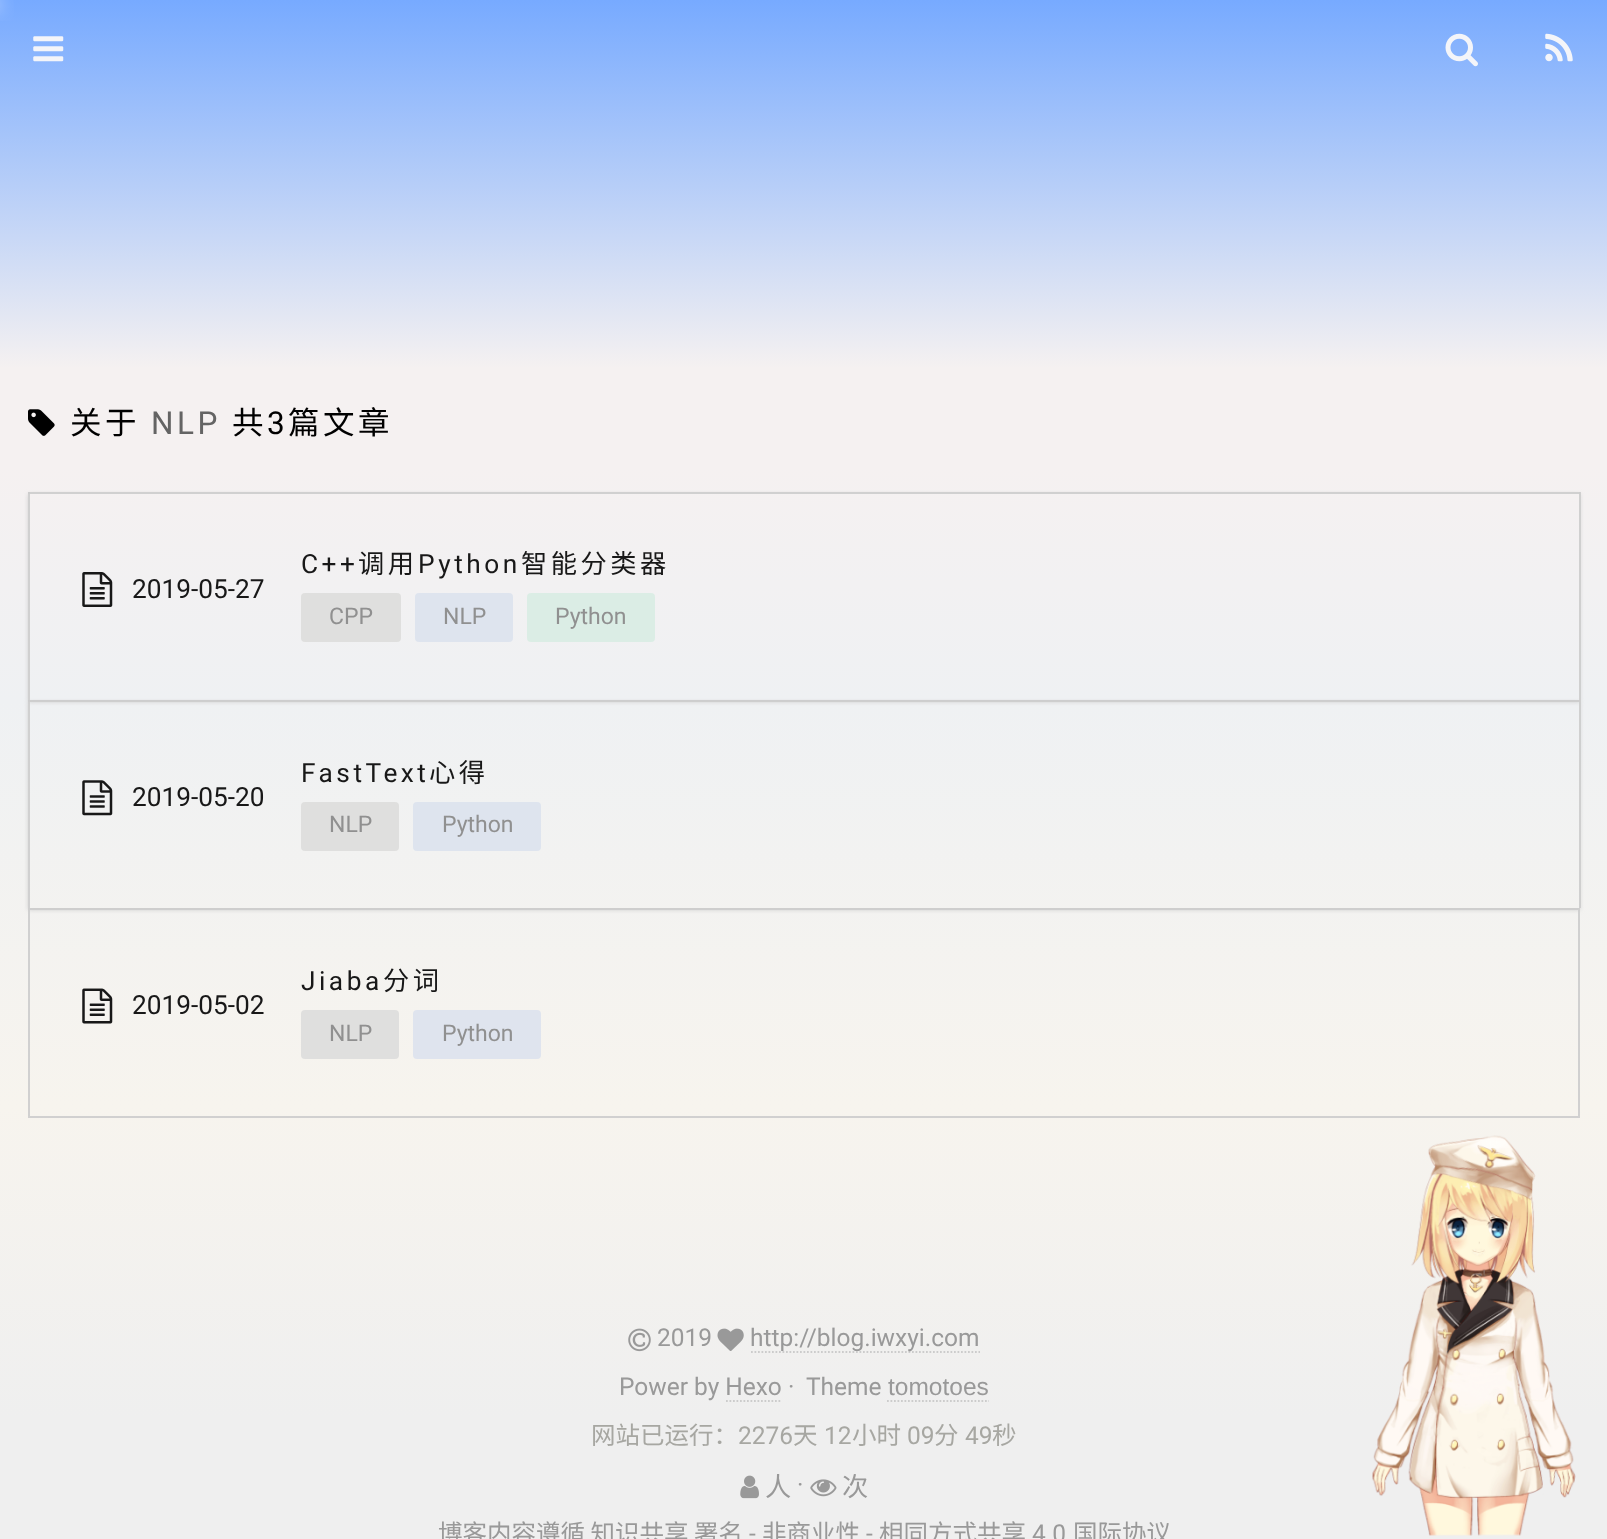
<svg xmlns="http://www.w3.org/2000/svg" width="1607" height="1539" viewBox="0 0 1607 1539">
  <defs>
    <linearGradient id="g1" gradientUnits="userSpaceOnUse" x1="594" y1="368" x2="594" y2="0"><stop offset="0" stop-color="#f5f1f1"/><stop offset="1" stop-color="#77aaff"/></linearGradient>
    <filter id="blur1" x="-50%" y="-200%" width="200%" height="500%"><feGaussianBlur stdDeviation="9"/></filter>
    <linearGradient id="g2" gradientUnits="userSpaceOnUse" x1="804" y1="0" x2="804" y2="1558"><stop offset="0.3" stop-color="#f5f1f1"/><stop offset="0.45" stop-color="#eff1f3"/><stop offset="0.71" stop-color="#f7f4ee"/><stop offset="0.91" stop-color="#efefef"/></linearGradient>
    <linearGradient id="g3" gradientUnits="userSpaceOnUse" x1="804" y1="0" x2="804" y2="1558"><stop offset="0.3" stop-color="#d0d0d0"/><stop offset="0.45" stop-color="#d0d0d0"/><stop offset="0.71" stop-color="#d0d0cf"/><stop offset="0.91" stop-color="#d0d0d0"/></linearGradient>
    <clipPath id="clip1"><path d="M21 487H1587V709H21ZM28 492H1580V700H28Z" clip-rule="evenodd"/></clipPath>
    <filter id="blur2" x="-50%" y="-200%" width="200%" height="500%"><feGaussianBlur stdDeviation="2"/></filter>
    <clipPath id="clip2"><path d="M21 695H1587V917H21ZM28 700H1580V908H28Z" clip-rule="evenodd"/></clipPath>
  </defs>
  <rect width="100%" height="100%" fill="#ffffff"/>
  <rect x="0" y="0" width="1607" height="368" fill="url(#g1)"/>
  <rect x="-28" y="0" width="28" height="7" rx="1" fill="#fdfdfd" fill-opacity="0.92" filter="url(#blur1)"/>
  <rect x="0" y="368" width="1607" height="1171" fill="url(#g2)"/>
  <rect x="28" y="492" width="2" height="208" fill="url(#g3)"/>
  <image x="33" y="36" width="31" height="26" href="img1.png"/>
  <image x="1445" y="33" width="33" height="34" href="img2.png"/>
  <image x="1545" y="33" width="28" height="29" href="img3.png"/>
  <image x="28" y="409" width="27" height="27" href="img4.png"/>
  <text x="70" y="434" font-family="Noto Sans CJK SC" font-size="31.5" letter-spacing="3.5" fill="#000000">关于</text>
  <text x="151" y="434" font-family="Roboto" font-size="31.5" letter-spacing="3.5" fill="#646464">NLP</text>
  <text x="232" y="434" font-family="Noto Sans CJK SC" font-size="31.5" letter-spacing="3.5" fill="#000000">共</text>
  <text x="267" y="434" font-family="Roboto" font-size="31.5" letter-spacing="3.5" fill="#000000">3</text>
  <text x="288" y="434" font-family="Noto Sans CJK SC" font-size="31.5" letter-spacing="3.5" fill="#000000">篇文章</text>
  <g clip-path="url(#clip1)">
    <rect x="28" y="494" width="1552" height="208" fill="#cccccc" fill-opacity="0.9" filter="url(#blur2)"/>
  </g>
  <rect x="28" y="492" width="1552" height="2" fill="#d0d0d0"/>
  <rect x="28" y="492" width="2" height="2" fill="#cccccc"/>
  <rect x="1579" y="492" width="2" height="208" fill="#cccccc" fill-opacity="0.9"/>
  <image x="82" y="572" width="31" height="35" href="img5.png"/>
  <text x="132" y="598" font-family="Roboto" font-size="26.25" fill="#181818">2019-05-27</text>
  <text x="301" y="573" font-family="Roboto" font-size="26.25" letter-spacing="3.5" fill="#181818">C++</text>
  <text x="358" y="573" font-family="Noto Sans CJK SC" font-size="26.25" letter-spacing="3.5" fill="#181818">调用</text>
  <text x="418" y="573" font-family="Roboto" font-size="26.25" letter-spacing="3.5" fill="#181818">Python</text>
  <text x="521" y="573" font-family="Noto Sans CJK SC" font-size="26.25" letter-spacing="3.5" fill="#181818">智能分类器</text>
  <rect x="301" y="593" width="100" height="49" rx="4" fill="#dfdfde"/>
  <text x="329" y="624" font-family="Roboto" font-size="23" fill="#909090">CPP</text>
  <rect x="415" y="593" width="98" height="49" rx="4" fill="#dee4ee"/>
  <text x="443" y="624" font-family="Roboto" font-size="23" fill="#909090">NLP</text>
  <rect x="527" y="593" width="128" height="49" rx="4" fill="#dbede5"/>
  <text x="555" y="624" font-family="Roboto" font-size="23" fill="#909090">Python</text>
  <g clip-path="url(#clip2)">
    <rect x="28" y="702" width="1552" height="208" fill="#cccccc" fill-opacity="0.9" filter="url(#blur2)"/>
  </g>
  <rect x="28" y="700" width="1552" height="2" fill="#cccccc" fill-opacity="0.9"/>
  <rect x="1579" y="700" width="2" height="208" fill="#cccccc" fill-opacity="0.9"/>
  <rect x="28" y="700" width="2" height="208" fill="#cccccc" fill-opacity="0.9"/>
  <image x="82" y="780" width="31" height="36" href="img6.png"/>
  <text x="132" y="806" font-family="Roboto" font-size="26.25" fill="#181818">2019-05-20</text>
  <text x="301" y="782" font-family="Roboto" font-size="26.25" letter-spacing="3.5" fill="#181818">FastText</text>
  <text x="429" y="782" font-family="Noto Sans CJK SC" font-size="26.25" letter-spacing="3.5" fill="#181818">心得</text>
  <rect x="301" y="802" width="98" height="49" rx="4" fill="#dfdfde"/>
  <text x="329" y="832" font-family="Roboto" font-size="23" fill="#909090">NLP</text>
  <rect x="413" y="802" width="128" height="49" rx="4" fill="#dee4ee"/>
  <text x="442" y="832" font-family="Roboto" font-size="23" fill="#909090">Python</text>
  <rect x="29" y="909" width="1550" height="208" fill="none" stroke="#cccccc" stroke-opacity="0.9" stroke-width="2"/>
  <image x="82" y="988" width="31" height="36" href="img7.png"/>
  <text x="132" y="1014" font-family="Roboto" font-size="26.25" fill="#181818">2019-05-02</text>
  <text x="301" y="990" font-family="Roboto" font-size="26.25" letter-spacing="3.5" fill="#181818">Jiaba</text>
  <text x="383" y="990" font-family="Noto Sans CJK SC" font-size="26.25" letter-spacing="3.5" fill="#181818">分词</text>
  <rect x="301" y="1010" width="98" height="49" rx="4" fill="#dfdfde"/>
  <text x="329" y="1041" font-family="Roboto" font-size="23" fill="#909090">NLP</text>
  <rect x="413" y="1010" width="128" height="49" rx="4" fill="#dfe4ee"/>
  <text x="442" y="1041" font-family="Roboto" font-size="23" fill="#909090">Python</text>
  <image x="628" y="1328" width="23" height="24" href="img8.png"/>
  <text x="657" y="1346" font-family="Roboto" font-size="24.5" fill="#999999">2019</text>
  <image x="717" y="1328" width="27" height="23" href="img9.png"/>
  <path d="M751 1352H980" fill="none" stroke="#cccccc" stroke-width="1.8" stroke-dasharray="1.75 1.75"/>
  <text x="750" y="1346" font-family="Roboto" font-size="24.5" fill="#999999">http://blog.iwxyi.com</text>
  <text x="619" y="1395" font-family="Roboto" font-size="24.5" fill="#999999">Power by Hexo</text>
  <text x="788" y="1395" font-family="Roboto" font-size="24.5" fill="#999999">·</text>
  <text x="806" y="1395" font-family="Roboto" font-size="24.5" fill="#999999">Theme</text>
  <text x="888" y="1395" font-family="Liberation Sans" font-size="24.5" fill="#999999">tomotoes</text>
  <path d="M887 1401H989" fill="none" stroke="#cccccc" stroke-width="1.8" stroke-dasharray="1.75 1.75"/>
  <path d="M726 1401H782" fill="none" stroke="#cccccc" stroke-width="1.8" stroke-dasharray="1.75 1.75"/>
  <text x="591" y="1444" font-family="Noto Sans CJK SC" font-size="24.5" fill="#a7a7a2">网站已运行：</text>
  <text x="738" y="1444" font-family="Roboto" font-size="24.5" fill="#a7a7a2">2276</text>
  <text x="793" y="1444" font-family="Noto Sans CJK SC" font-size="24.5" fill="#a7a7a2">天</text>
  <text x="824" y="1444" font-family="Roboto" font-size="24.5" fill="#a7a7a2">12</text>
  <text x="852" y="1444" font-family="Noto Sans CJK SC" font-size="24.5" fill="#a7a7a2">小时</text>
  <text x="907" y="1444" font-family="Roboto" font-size="24.5" fill="#a7a7a2">09</text>
  <text x="934" y="1444" font-family="Noto Sans CJK SC" font-size="24.5" fill="#a7a7a2">分</text>
  <text x="965" y="1444" font-family="Roboto" font-size="24.5" fill="#a7a7a2">49</text>
  <text x="992" y="1444" font-family="Noto Sans CJK SC" font-size="24.5" fill="#a7a7a2">秒</text>
  <image x="740" y="1475" width="19" height="24" href="img10.png"/>
  <text x="765" y="1496" font-family="Noto Sans CJK SC" font-size="26.25" fill="#999999">人</text>
  <text x="797" y="1493" font-family="Roboto" font-size="24.5" fill="#999999">·</text>
  <image x="810" y="1479" width="27" height="18" href="img11.png"/>
  <text x="842" y="1496" font-family="Noto Sans CJK SC" font-size="26.25" fill="#999999">次</text>
  <text x="438" y="1542" font-family="Noto Sans CJK SC" font-size="24.5" fill="#999999">博客内容遵循 知识共享 署名</text>
  <text x="749" y="1542" font-family="Roboto" font-size="24.5" fill="#999999">-</text>
  <text x="762" y="1542" font-family="Noto Sans CJK SC" font-size="24.5" fill="#999999">非商业性</text>
  <text x="866" y="1542" font-family="Roboto" font-size="24.5" fill="#999999">-</text>
  <text x="879" y="1542" font-family="Noto Sans CJK SC" font-size="24.5" fill="#999999">相同方式共享</text>
  <text x="1032" y="1542" font-family="Roboto" font-size="24.5" fill="#999999">4.0</text>
  <text x="1073" y="1542" font-family="Noto Sans CJK SC" font-size="24.5" fill="#999999">国际协议</text>
  <image x="1372" y="1135" width="204" height="401" href="img12.png"/>
</svg>
